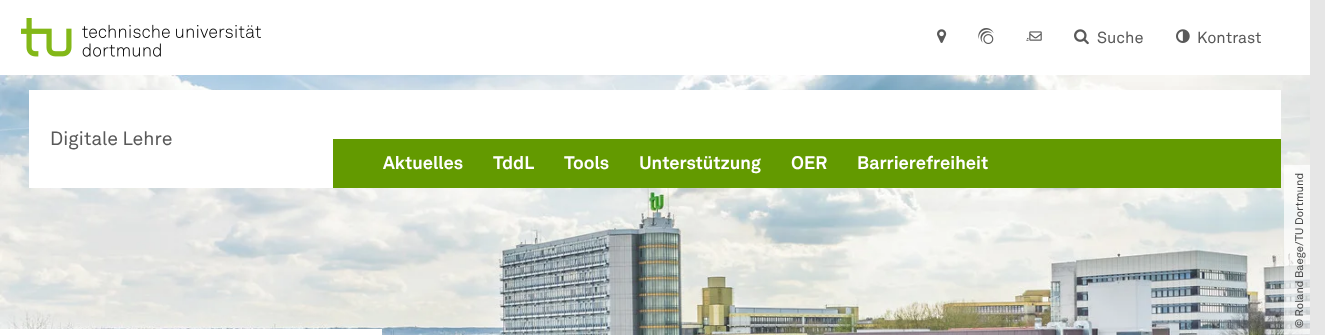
<svg xmlns="http://www.w3.org/2000/svg" width="1325" height="335" viewBox="0 0 1325 335">
  <rect width="100%" height="100%" fill="#e6e6e6"/>
  <rect x="0" y="0" width="1310" height="75" fill="#ffffff"/>
  <image x="21" y="18" width="240" height="39" href="img1.png"/>
  <image x="937" y="29" width="10" height="14" href="img2.png"/>
  <image x="978" y="28" width="16" height="16" href="img3.png"/>
  <image x="1026" y="31" width="16" height="10" href="img4.png"/>
  <image x="1074" y="29" width="15" height="16" href="img5.png"/>
  <text x="1097" y="43" font-family="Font" font-size="16" fill="#595959">Suche</text>
  <image x="1176" y="29" width="14" height="14" href="img6.png"/>
  <text x="1197" y="43" font-family="Font" font-size="16" fill="#595959">Kontrast</text>
  <image x="0" y="75" width="1310" height="260" href="img7.png"/>
  <rect x="29" y="90" width="1252" height="98" fill="#ffffff"/>
  <text x="50" y="145" font-family="Font" font-size="19" fill="#595959">Digitale Lehre</text>
  <rect x="333" y="139" width="948" height="49" fill="#639a00"/>
  <text x="383" y="169" font-family="Font" font-size="18" font-weight="bold" fill="#ffffff">Aktuelles</text>
  <text x="493" y="169" font-family="Font" font-size="18" font-weight="bold" fill="#ffffff">TddL</text>
  <text x="564" y="169" font-family="Font" font-size="18" font-weight="bold" fill="#ffffff">Tools</text>
  <text x="639" y="169" font-family="Font" font-size="18" font-weight="bold" fill="#ffffff">Unterstützung</text>
  <text x="791" y="169" font-family="Font" font-size="18" font-weight="bold" fill="#ffffff">OER</text>
  <text x="857" y="169" font-family="Font" font-size="18" font-weight="bold" fill="#ffffff">Barrierefreiheit</text>
  <rect x="1284" y="165" width="26" height="170" fill="#ffffff" fill-opacity="0.7"/>
  <text x="1303" y="328" transform="rotate(-90 1303 328)" font-family="Font" font-size="11" fill="#474848">© Roland Baege/TU Dortmund</text>
  <rect x="0" y="329" width="382" height="6" fill="#ffffff"/>
</svg>
